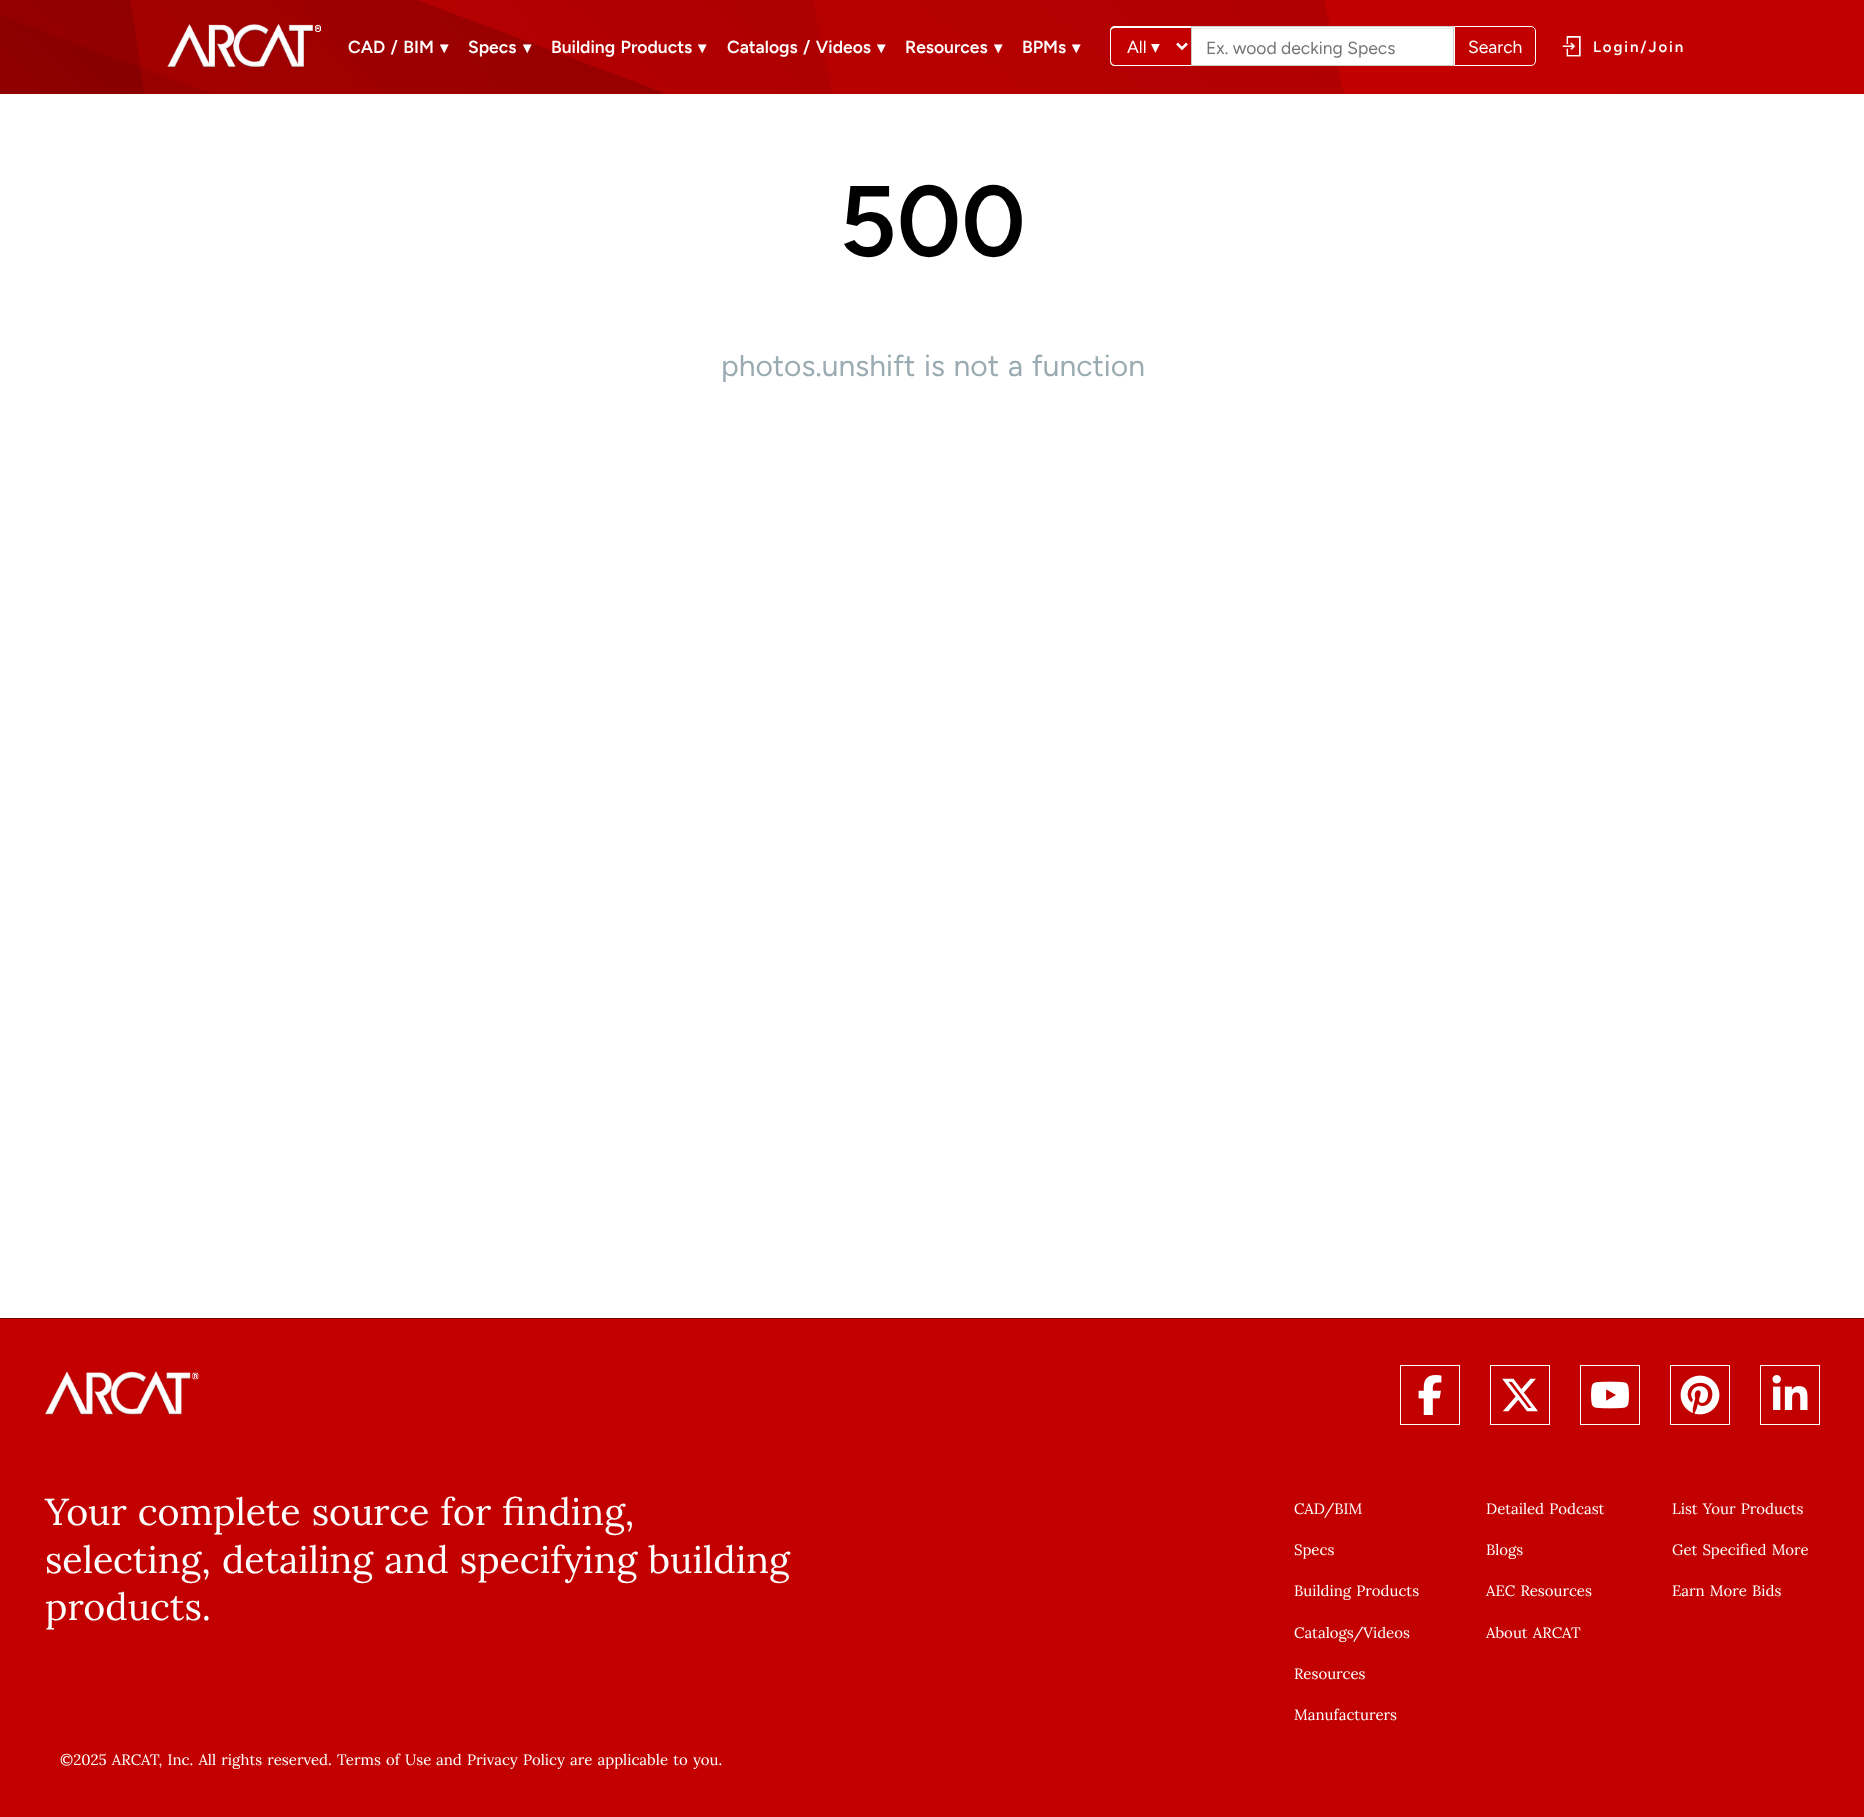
<svg xmlns="http://www.w3.org/2000/svg" width="1864" height="1817" viewBox="0 0 1864 1817">
  <rect width="100%" height="100%" fill="#ffffff"/>
  <image x="0" y="0" width="1864" height="94" href="img1.png"/>
  <image x="167" y="23" width="154" height="45" href="img2.png"/>
  <text x="348" y="53" word-spacing="1.25" font-family="Figtree" font-size="17.5" font-weight="600" fill="#ffffff">CAD / BIM</text>
  <text x="440" y="53" font-family="DejaVu Sans" font-size="16" font-weight="bold" fill="#ffffff">▾</text>
  <text x="468" y="53" font-family="Figtree" font-size="17.5" font-weight="600" fill="#ffffff">Specs</text>
  <text x="523" y="53" font-family="DejaVu Sans" font-size="16" font-weight="bold" fill="#ffffff">▾</text>
  <text x="551" y="53" word-spacing="1.25" font-family="Figtree" font-size="17.5" font-weight="600" fill="#ffffff">Building Products</text>
  <text x="698" y="53" font-family="DejaVu Sans" font-size="16" font-weight="bold" fill="#ffffff">▾</text>
  <text x="727" y="53" word-spacing="1.25" font-family="Figtree" font-size="17.5" font-weight="600" fill="#ffffff">Catalogs / Videos</text>
  <text x="877" y="53" font-family="DejaVu Sans" font-size="16" font-weight="bold" fill="#ffffff">▾</text>
  <text x="905" y="53" font-family="Figtree" font-size="17.5" font-weight="600" fill="#ffffff">Resources</text>
  <text x="994" y="53" font-family="DejaVu Sans" font-size="16" font-weight="bold" fill="#ffffff">▾</text>
  <text x="1022" y="53" font-family="Figtree" font-size="17.5" font-weight="600" fill="#ffffff">BPMs</text>
  <text x="1072" y="53" font-family="DejaVu Sans" font-size="16" font-weight="bold" fill="#ffffff">▾</text>
  <path d="M1115 26H1191V66H1115C1112 66 1110 64 1110 61V31C1110 28 1112 26 1115 26Z" fill="#c20000"/>
  <path d="M1115 26H1191V66H1115C1112 66 1110 64 1110 61V31C1110 28 1112 26 1115 26ZM1115 28H1191V65H1115C1113 65 1111 63 1111 61V31C1111 29 1113 28 1115 28Z" fill="#ffffff" fill-rule="evenodd"/>
  <path d="M1177 43.5L1182 48.5L1187 43.5" fill="none" stroke="#ffffff" stroke-width="2.5"/>
  <text x="1127" y="53" font-family="Figtree" font-size="17.5" fill="#ffffff">All</text>
  <text x="1151" y="53" font-family="DejaVu Sans" font-size="17.5" fill="#ffffff">▾</text>
  <rect x="1192" y="27" width="261" height="38" fill="#ffffff"/>
  <rect x="1193" y="28" width="260" height="1" fill="#ececec"/>
  <rect x="1191.5" y="26.5" width="262" height="39" fill="none" stroke="#cccccc"/>
  <text x="1206" y="54" font-family="Figtree" font-size="17.5" fill="#757575">Ex. wood decking Specs</text>
  <path d="M1454.5 26.5H1531C1533.5 26.5 1535.5 28.5 1535.5 31V61C1535.5 63.5 1533.5 65.5 1531 65.5H1454.5Z" fill="none" stroke="#ffffff"/>
  <text x="1468" y="53" font-family="Figtree" font-size="17.5" fill="#ffffff">Search</text>
  <image x="1562" y="36" width="19" height="21" href="img3.png"/>
  <text x="1593" y="52" font-family="Figtree" font-size="15" font-weight="600" letter-spacing="1.9" fill="#ffffff">Login/Join</text>
  <text x="839" y="256" font-family="Figtree" font-size="100" font-weight="600" fill="#000000">500</text>
  <text x="721" y="376" word-spacing="1.25" font-family="Figtree" font-size="30" fill="#9aabb1">photos.unshift is not a function</text>
  <rect x="0" y="1319" width="1864" height="498" fill="#c20000"/>
  <rect x="0" y="1318" width="1864" height="1" fill="#760000"/>
  <image x="45" y="1371" width="154" height="44" href="img4.png"/>
  <rect x="1400.5" y="1365.5" width="59" height="59" fill="none" stroke="#ffffff"/>
  <image x="1418" y="1375" width="24" height="40" href="img5.png"/>
  <rect x="1490.5" y="1365.5" width="59" height="59" fill="none" stroke="#ffffff"/>
  <image x="1502" y="1378" width="36" height="34" href="img6.png"/>
  <rect x="1580.5" y="1365.5" width="59" height="59" fill="none" stroke="#ffffff"/>
  <image x="1591" y="1381" width="38" height="28" href="img7.png"/>
  <rect x="1670.5" y="1365.5" width="59" height="59" fill="none" stroke="#ffffff"/>
  <image x="1680" y="1375" width="40" height="40" href="img8.png"/>
  <rect x="1760.5" y="1365.5" width="59" height="59" fill="none" stroke="#ffffff"/>
  <image x="1772" y="1375" width="36" height="35" href="img9.png"/>
  <text x="45" y="1525" word-spacing="1.25" font-family="Lora" font-size="37.5" fill="#ffffff">Your complete source for finding,</text>
  <text x="45" y="1573" word-spacing="1.25" font-family="Lora" font-size="37.5" fill="#ffffff">selecting, detailing and specifying building</text>
  <text x="45" y="1620" font-family="Lora" font-size="37.5" fill="#ffffff">products.</text>
  <text x="1294" y="1514" font-family="Lora" font-size="15" fill="#ffffff">CAD</text>
  <text x="1324" y="1514" font-family="Lora" font-size="15" fill="#ffffff">/BIM</text>
  <text x="1294" y="1555" font-family="Lora" font-size="15" fill="#ffffff">Specs</text>
  <text x="1294" y="1596" word-spacing="1.25" font-family="Lora" font-size="15" fill="#ffffff">Building Products</text>
  <text x="1294" y="1638" font-family="Lora" font-size="15" fill="#ffffff">Catalogs</text>
  <text x="1353" y="1638" font-family="Lora" font-size="15" fill="#ffffff">/Videos</text>
  <text x="1294" y="1679" font-family="Lora" font-size="15" fill="#ffffff">Resources</text>
  <text x="1294" y="1720" font-family="Lora" font-size="15" fill="#ffffff">Manufacturers</text>
  <text x="1486" y="1514" word-spacing="1.25" font-family="Lora" font-size="15" fill="#ffffff">Detailed Podcast</text>
  <text x="1486" y="1555" font-family="Lora" font-size="15" fill="#ffffff">Blogs</text>
  <text x="1486" y="1596" word-spacing="1.25" font-family="Lora" font-size="15" fill="#ffffff">AEC Resources</text>
  <text x="1486" y="1638" word-spacing="1.25" font-family="Lora" font-size="15" fill="#ffffff">About ARCAT</text>
  <text x="1672" y="1514" word-spacing="1.25" font-family="Lora" font-size="15" fill="#ffffff">List Your Products</text>
  <text x="1672" y="1555" word-spacing="1.25" font-family="Lora" font-size="15" fill="#ffffff">Get Specified More</text>
  <text x="1672" y="1596" word-spacing="1.25" font-family="Lora" font-size="15" fill="#ffffff">Earn More Bids</text>
  <text x="60" y="1765" word-spacing="1.25" font-family="Lora" font-size="15" fill="#ffffff">©2025 ARCAT, Inc. All rights reserved.</text>
  <text x="337" y="1765" word-spacing="1.25" font-family="Lora" font-size="15" fill="#ffffff">Terms of Use</text>
  <text x="436" y="1765" font-family="Lora" font-size="15" fill="#ffffff">and</text>
  <text x="467" y="1765" word-spacing="1.25" font-family="Lora" font-size="15" fill="#ffffff">Privacy Policy</text>
  <text x="570" y="1765" word-spacing="1.25" font-family="Lora" font-size="15" fill="#ffffff">are applicable to you.</text>
</svg>
